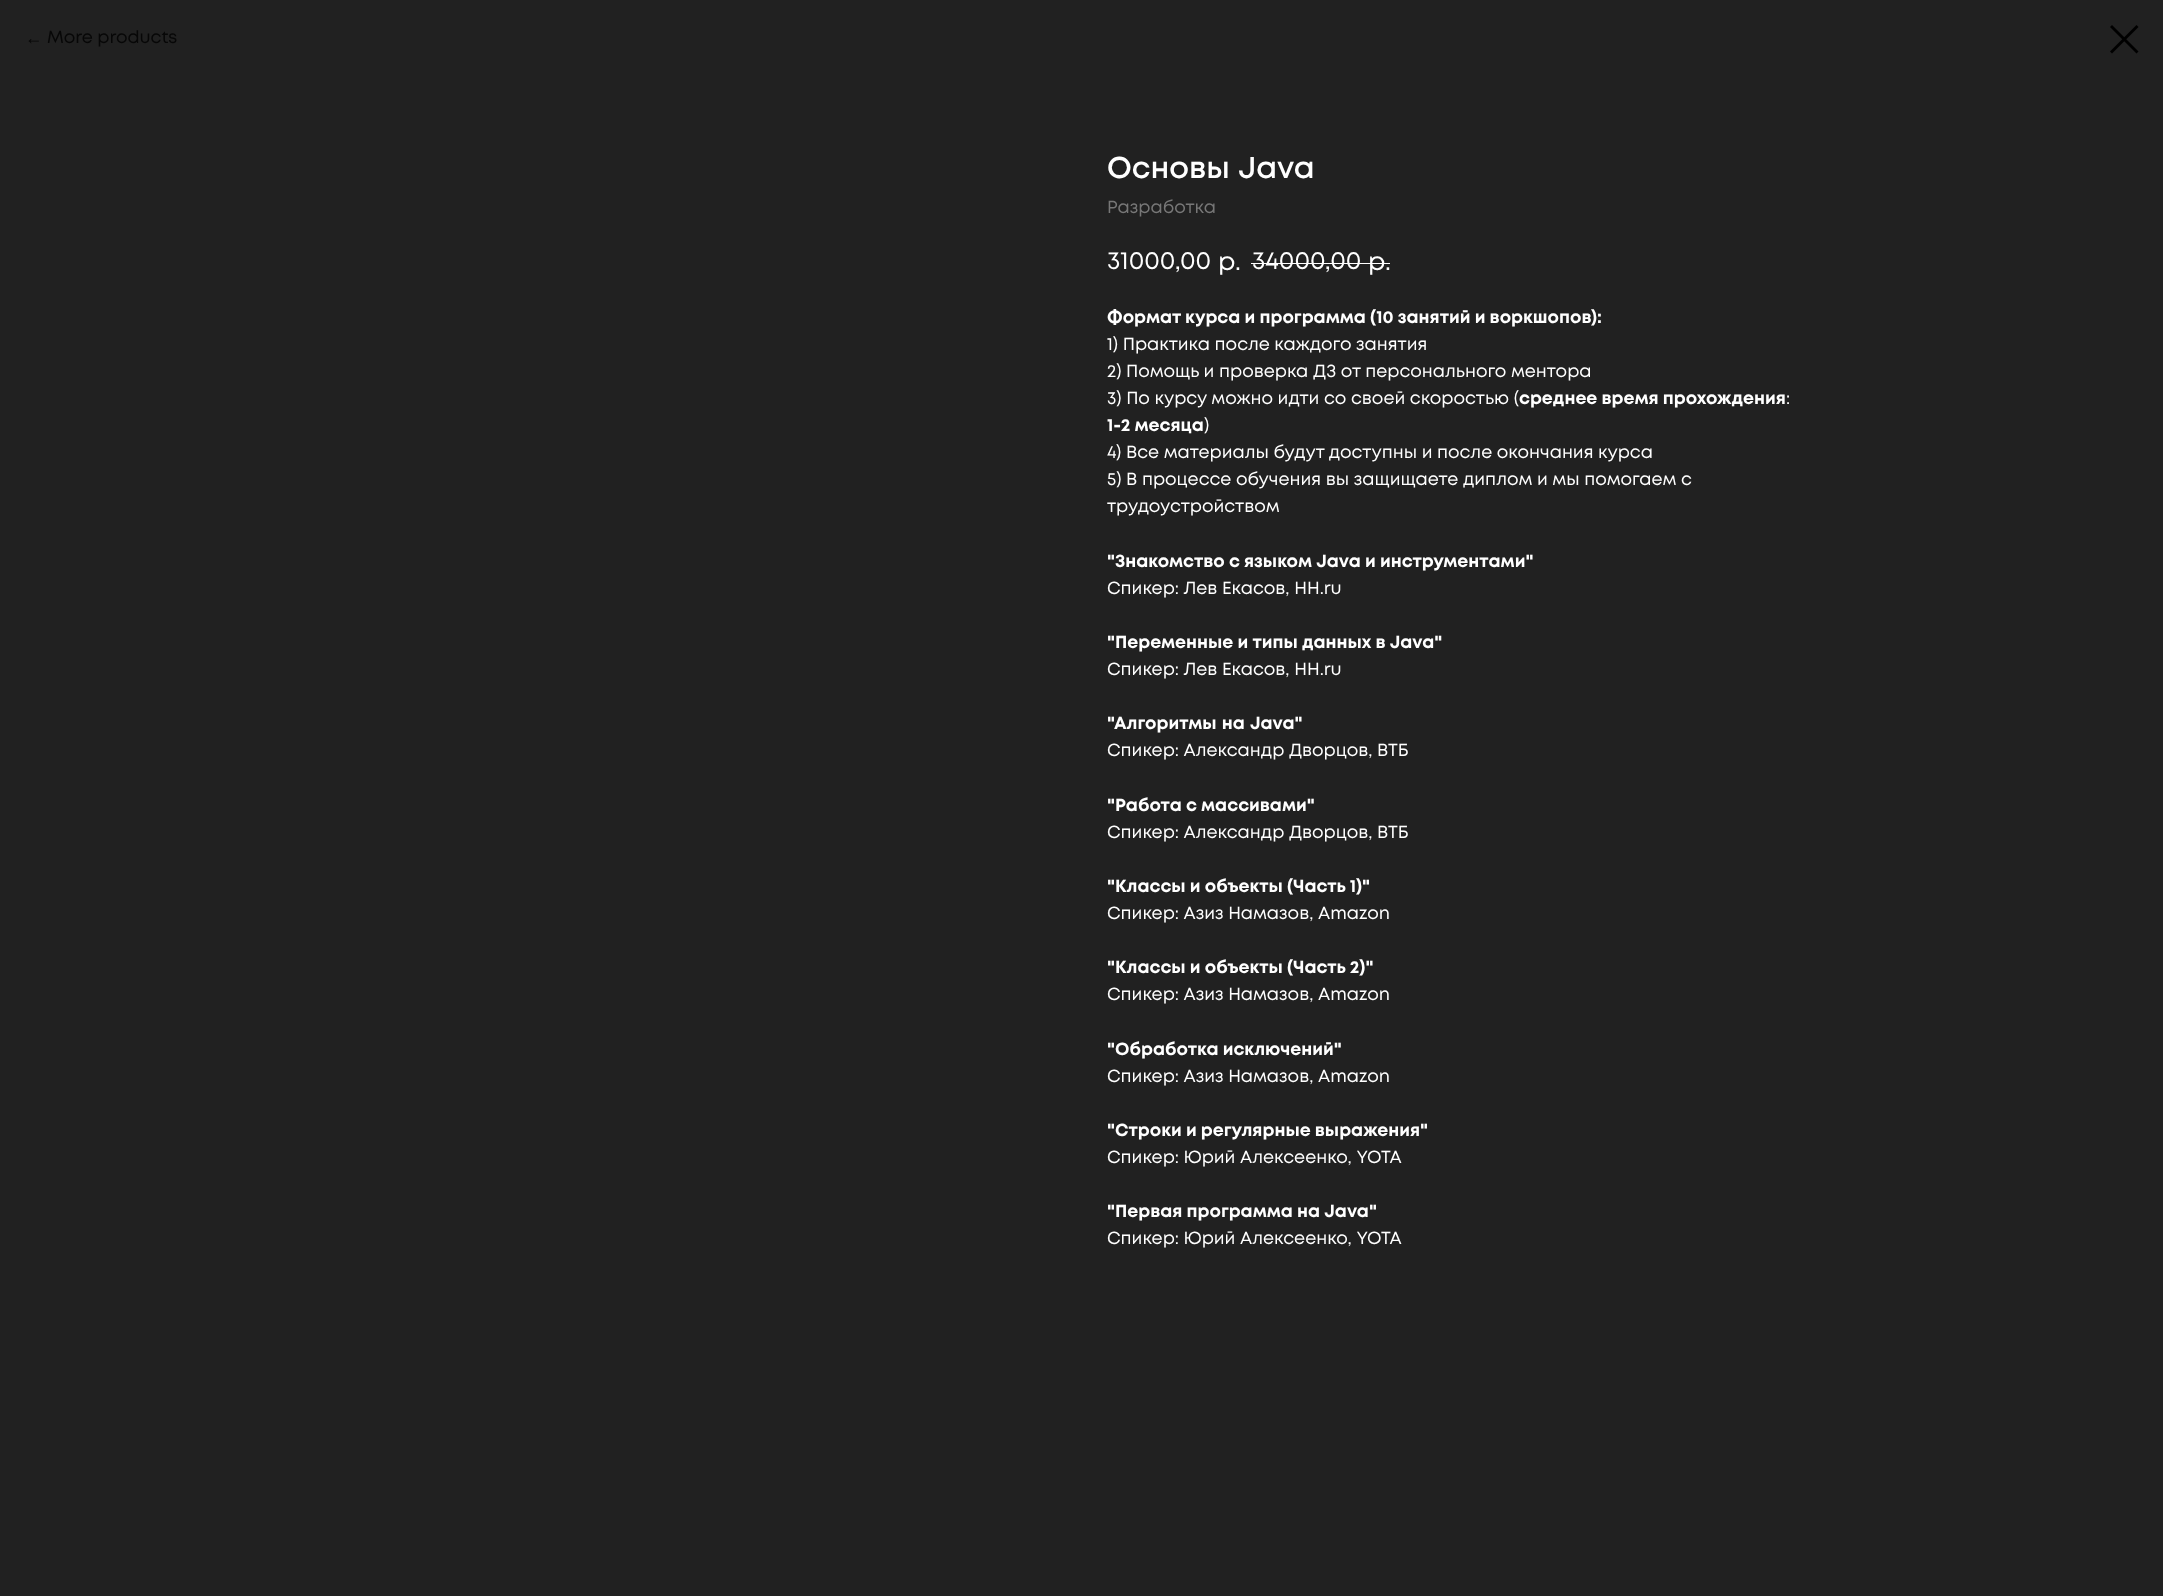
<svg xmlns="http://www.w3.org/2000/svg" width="2163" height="1596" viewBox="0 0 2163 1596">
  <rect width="100%" height="100%" fill="#212121"/>
  <text x="25" y="44" font-family="Liberation Sans" font-size="17.5" fill="#070707">←</text>
  <text x="47" y="43" font-family="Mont" font-size="17.5" fill="#070707">More products</text>
  <path d="M2110 27L2112 25L2138.5 51.5L2136.5 53.5Z" fill="#000000" fill-rule="evenodd"/>
  <path d="M2136.5 25L2138.5 27L2112 53.5L2110 51.5Z" fill="#000000" fill-rule="evenodd"/>
  <text x="1107" y="178" word-spacing="1" font-family="Mont" font-size="30" font-weight="600" fill="#ffffff">Основы Java</text>
  <text x="1107" y="213" font-family="Mont" font-size="17.5" fill="#777777">Разработка</text>
  <text x="1107" y="269" font-family="Mont" font-size="25" fill="#ffffff">31000,00</text>
  <text x="1218" y="270" font-family="Mont" font-size="25" fill="#ffffff">р.</text>
  <text x="1252" y="269" font-family="Mont" font-size="25" fill="#ffffff">34000,00</text>
  <text x="1368" y="270" font-family="Mont" font-size="25" fill="#ffffff">р.</text>
  <rect x="1251" y="263" width="139" height="1" fill="#ffffff"/>
  <text x="1107" y="323" font-family="Mont" font-size="17.5" font-weight="bold" fill="#ffffff">Формат курса и программа (10 занятий и воркшопов):</text>
  <text x="1107" y="350" font-family="Mont" font-size="17.5" fill="#ffffff">1) Практика после каждого занятия</text>
  <text x="1107" y="377" font-family="Mont" font-size="17.5" fill="#ffffff">2) Помощь и проверка ДЗ от персонального ментора</text>
  <text x="1107" y="404" font-family="Mont" font-size="17.5" fill="#ffffff">3) По курсу можно идти со своей скоростью (</text>
  <text x="1519" y="404" font-family="Mont" font-size="17.5" font-weight="bold" fill="#ffffff">среднее время прохождения</text>
  <text x="1786" y="404" font-family="Mont" font-size="17.5" fill="#ffffff">:</text>
  <text x="1107" y="431" font-family="Mont" font-size="17.5" font-weight="bold" fill="#ffffff">1-2 месяца</text>
  <text x="1204" y="431" font-family="Mont" font-size="17.5" fill="#ffffff">)</text>
  <text x="1107" y="458" font-family="Mont" font-size="17.5" fill="#ffffff">4) Все материалы будут доступны и после окончания курса</text>
  <text x="1107" y="485" font-family="Mont" font-size="17.5" fill="#ffffff">5) В процессе обучения вы защищаете диплом и мы помогаем с</text>
  <text x="1107" y="512" font-family="Mont" font-size="17.5" fill="#ffffff">трудоустройством</text>
  <text x="1107" y="567" font-family="Mont" font-size="17.5" font-weight="bold" fill="#ffffff">"Знакомство с языком Java и инструментами"</text>
  <text x="1107" y="594" font-family="Mont" font-size="17.5" fill="#ffffff">Спикер: Лев Екасов, HH.ru</text>
  <text x="1107" y="648" font-family="Mont" font-size="17.5" font-weight="bold" fill="#ffffff">"Переменные и типы данных в Java"</text>
  <text x="1107" y="675" font-family="Mont" font-size="17.5" fill="#ffffff">Спикер: Лев Екасов, HH.ru</text>
  <text x="1107" y="729" word-spacing="1" font-family="Mont" font-size="17.5" font-weight="bold" fill="#ffffff">"Алгоритмы на Java"</text>
  <text x="1107" y="756" font-family="Mont" font-size="17.5" fill="#ffffff">Спикер: Александр Дворцов, ВТБ</text>
  <text x="1107" y="811" font-family="Mont" font-size="17.5" font-weight="bold" fill="#ffffff">"Работа с массивами"</text>
  <text x="1107" y="838" font-family="Mont" font-size="17.5" fill="#ffffff">Спикер: Александр Дворцов, ВТБ</text>
  <text x="1107" y="892" font-family="Mont" font-size="17.5" font-weight="bold" fill="#ffffff">"Классы и объекты (Часть 1)"</text>
  <text x="1107" y="919" font-family="Mont" font-size="17.5" fill="#ffffff">Спикер: Азиз Намазов, Amazon</text>
  <text x="1107" y="973" font-family="Mont" font-size="17.5" font-weight="bold" fill="#ffffff">"Классы и объекты (Часть 2)"</text>
  <text x="1107" y="1000" font-family="Mont" font-size="17.5" fill="#ffffff">Спикер: Азиз Намазов, Amazon</text>
  <text x="1107" y="1055" font-family="Mont" font-size="17.5" font-weight="bold" fill="#ffffff">"Обработка исключений"</text>
  <text x="1107" y="1082" font-family="Mont" font-size="17.5" fill="#ffffff">Спикер: Азиз Намазов, Amazon</text>
  <text x="1107" y="1136" font-family="Mont" font-size="17.5" font-weight="bold" fill="#ffffff">"Строки и регулярные выражения"</text>
  <text x="1107" y="1163" font-family="Mont" font-size="17.5" fill="#ffffff">Спикер: Юрий Алексеенко, YOTA</text>
  <text x="1107" y="1217" font-family="Mont" font-size="17.5" font-weight="bold" fill="#ffffff">"Первая программа на Java"</text>
  <text x="1107" y="1244" font-family="Mont" font-size="17.5" fill="#ffffff">Спикер: Юрий Алексеенко, YOTA</text>
</svg>
